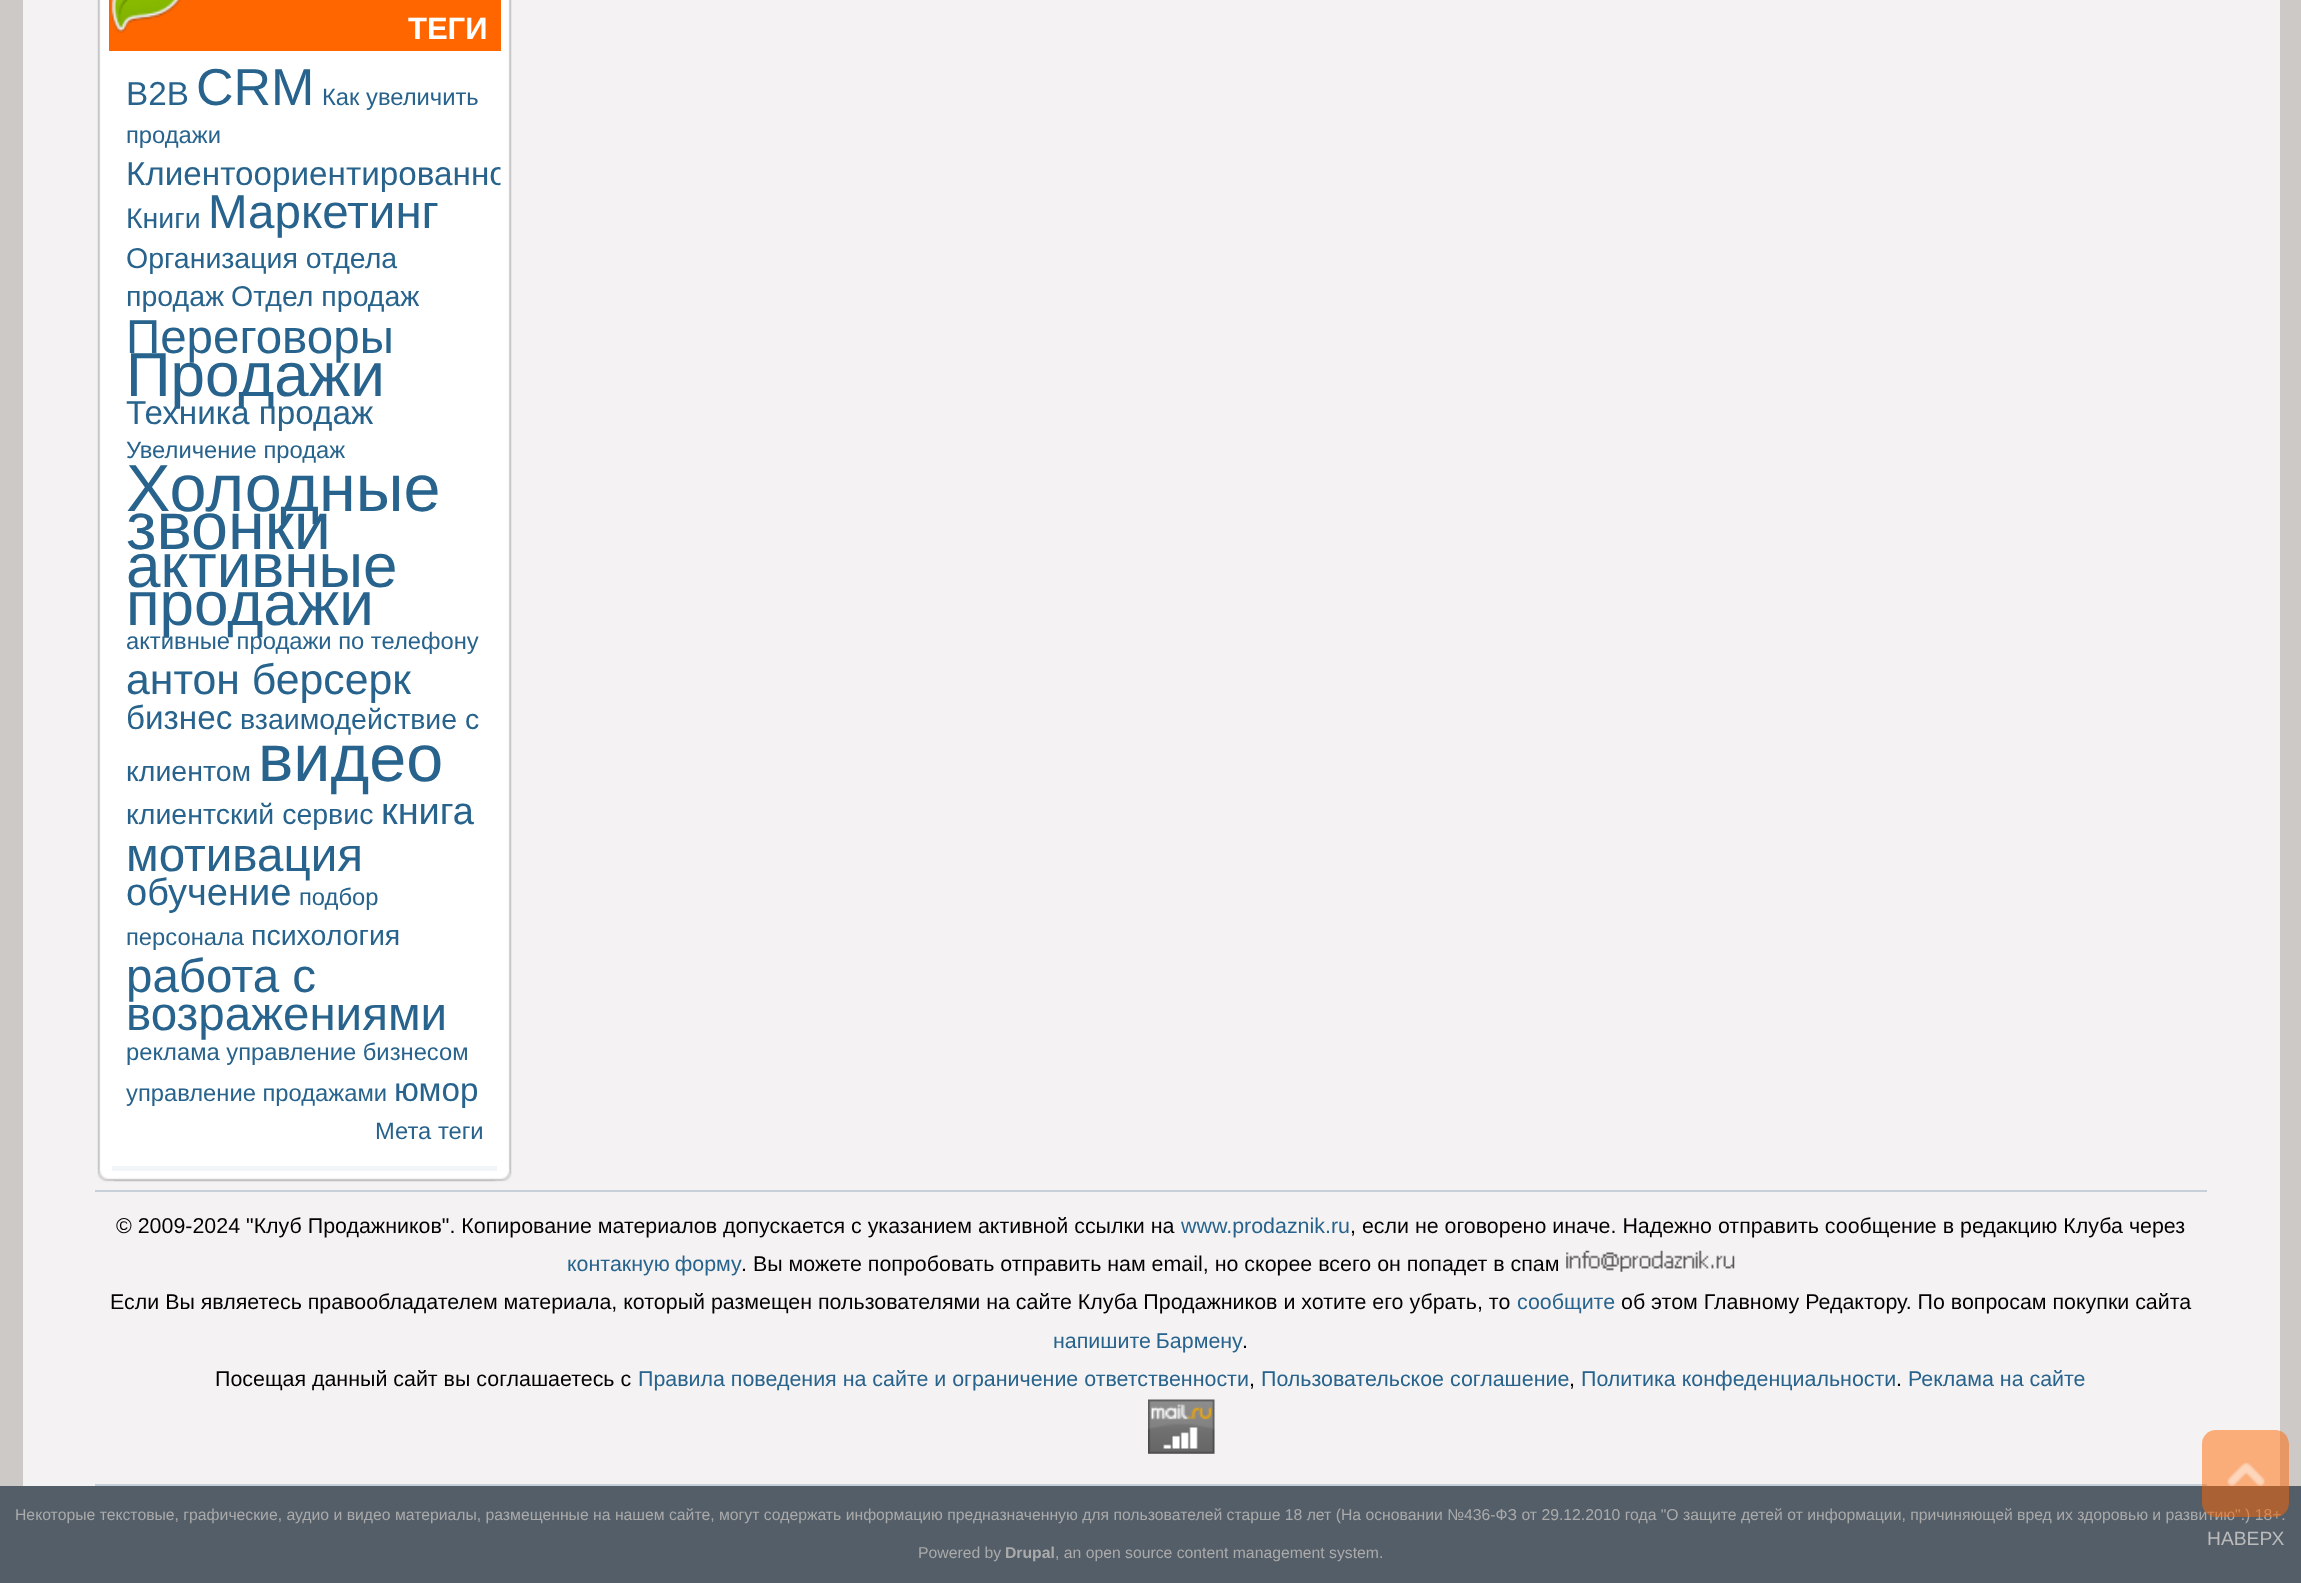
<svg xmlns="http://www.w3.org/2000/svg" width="2301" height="1583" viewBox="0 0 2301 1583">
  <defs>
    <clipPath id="clip1"><path d="M108.5 51H500.5V1164C500.5 1164.5 497.5 1165.5 493.5 1165.5H115.5C111.5 1165.5 108.5 1164.5 108.5 1164Z"/></clipPath>
  </defs>
  <rect width="100%" height="100%" fill="#cdc9c6"/>
  <rect x="23" y="0" width="2257" height="1486" fill="#f4f2f2"/>
  <image x="95" y="0" width="417" height="1171" href="img1.png"/>
  <image x="95" y="0" width="6" height="1171" href="img2.png"/>
  <rect x="109" y="0" width="392" height="51" fill="#ff6600"/>
  <image x="110" y="0" width="71" height="33" href="img3.png"/>
  <text x="408" y="39" font-family="Liberation Sans" font-size="31" font-weight="bold" fill="#ffffff">ТЕГИ</text>
  <image x="97" y="1170" width="399" height="12" href="img4.png"/>
  <image x="114" y="1170" width="398" height="12" href="img5.png"/>
  <rect x="112" y="1166" width="385" height="5" fill="#f1f5f7"/>
  <text x="126" y="105" font-family="Liberation Sans" font-size="33.25" fill="#27638c">B2B</text>
  <text x="196" y="105" font-family="Liberation Sans" font-size="52" fill="#27638c">CRM</text>
  <text x="322" y="105" font-family="Liberation Sans" font-size="23.75" fill="#27638c">Как увеличить</text>
  <text x="126" y="143" font-family="Liberation Sans" font-size="23.75" fill="#27638c">продажи</text>
  <g clip-path="url(#clip1)">
    <text x="126" y="185" font-family="Liberation Sans" font-size="33.25" fill="#27638c">Клиентоориентированно</text>
  </g>
  <text x="126" y="228" font-family="Liberation Sans" font-size="28.5" fill="#27638c">Книги</text>
  <text x="208" y="228" font-family="Liberation Sans" font-size="47.5" fill="#27638c">Маркетинг</text>
  <text x="126" y="268" font-family="Liberation Sans" font-size="28.5" fill="#27638c">Организация отдела</text>
  <text x="126" y="306" font-family="Liberation Sans" font-size="28.5" fill="#27638c">продаж</text>
  <text x="231" y="306" font-family="Liberation Sans" font-size="28.5" fill="#27638c">Отдел продаж</text>
  <text x="126" y="353" font-family="Liberation Sans" font-size="47.5" fill="#27638c">Переговоры</text>
  <text x="126" y="396" font-family="Liberation Sans" font-size="62" fill="#27638c">Продажи</text>
  <text x="126" y="424" font-family="Liberation Sans" font-size="33.25" fill="#27638c">Техника продаж</text>
  <text x="126" y="458" font-family="Liberation Sans" font-size="23.75" fill="#27638c">Увеличение продаж</text>
  <text x="126" y="511" font-family="Liberation Sans" font-size="66.5" fill="#27638c">Холодные</text>
  <text x="126" y="549" font-family="Liberation Sans" font-size="66.5" fill="#27638c">звонки</text>
  <text x="126" y="587" font-family="Liberation Sans" font-size="62" fill="#27638c">активные</text>
  <text x="126" y="625" font-family="Liberation Sans" font-size="62" fill="#27638c">продажи</text>
  <text x="126" y="649" font-family="Liberation Sans" font-size="23.75" fill="#27638c">активные продажи по телефону</text>
  <text x="126" y="694" font-family="Liberation Sans" font-size="42.75" fill="#27638c">антон берсерк</text>
  <text x="126" y="729" font-family="Liberation Sans" font-size="33.25" fill="#27638c">бизнес</text>
  <text x="240" y="729" font-family="Liberation Sans" font-size="28.5" fill="#27638c">взаимодействие с</text>
  <text x="126" y="781" font-family="Liberation Sans" font-size="28.5" fill="#27638c">клиентом</text>
  <text x="258" y="781" font-family="Liberation Sans" font-size="66.5" fill="#27638c">видео</text>
  <text x="126" y="824" font-family="Liberation Sans" font-size="28.5" fill="#27638c">клиентский сервис</text>
  <text x="381" y="824" font-family="Liberation Sans" font-size="38" fill="#27638c">книга</text>
  <text x="126" y="871" font-family="Liberation Sans" font-size="47.5" fill="#27638c">мотивация</text>
  <text x="126" y="905" font-family="Liberation Sans" font-size="38" fill="#27638c">обучение</text>
  <text x="299" y="905" font-family="Liberation Sans" font-size="23.75" fill="#27638c">подбор</text>
  <text x="126" y="945" font-family="Liberation Sans" font-size="23.75" fill="#27638c">персонала</text>
  <text x="251" y="945" font-family="Liberation Sans" font-size="28.5" fill="#27638c">психология</text>
  <text x="126" y="992" font-family="Liberation Sans" font-size="47.5" fill="#27638c">работа с</text>
  <text x="126" y="1030" font-family="Liberation Sans" font-size="47.5" fill="#27638c">возражениями</text>
  <text x="126" y="1060" font-family="Liberation Sans" font-size="23.75" fill="#27638c">реклама управление бизнесом</text>
  <text x="126" y="1101" font-family="Liberation Sans" font-size="23.75" fill="#27638c">управление продажами</text>
  <text x="394" y="1101" font-family="Liberation Sans" font-size="33.25" fill="#27638c">юмор</text>
  <text x="375" y="1139" font-family="Liberation Sans" font-size="23.75" fill="#27638c">Мета теги</text>
  <rect x="95" y="1190" width="2112" height="2" fill="#c7d0d8"/>
  <rect x="95" y="1484" width="2112" height="2" fill="#c7d0d8"/>
  <text x="116" y="1233" font-family="Liberation Sans" font-size="21.42" fill="#000000">© 2009-2024 "Клуб Продажников". Копирование материалов допускается с указанием активной ссылки на</text>
  <text x="1181" y="1233" font-family="Liberation Sans" font-size="21.42" fill="#27638c">www.prodaznik.ru</text>
  <text x="1350" y="1233" font-family="Liberation Sans" font-size="21.42" fill="#000000">, если не оговорено иначе. Надежно отправить сообщение в редакцию Клуба через</text>
  <text x="567" y="1271" word-spacing="-1" font-family="Liberation Sans" font-size="21.42" fill="#27638c">контакную форму</text>
  <text x="741" y="1271" font-family="Liberation Sans" font-size="21.42" fill="#000000">. Вы можете попробовать отправить нам email, но скорее всего он попадет в спам</text>
  <image x="1566" y="1250" width="169" height="22" href="img6.png"/>
  <text x="110" y="1309" font-family="Liberation Sans" font-size="21.42" fill="#000000">Если Вы являетесь правообладателем материала, который размещен пользователями на сайте Клуба Продажников и хотите его убрать, то</text>
  <text x="1517" y="1309" font-family="Liberation Sans" font-size="21.42" fill="#27638c">сообщите</text>
  <text x="1621" y="1309" font-family="Liberation Sans" font-size="21.42" fill="#000000">об этом Главному Редактору. По вопросам покупки сайта</text>
  <text x="1053" y="1348" word-spacing="-1" font-family="Liberation Sans" font-size="21.42" fill="#27638c">напишите Бармену</text>
  <text x="1242" y="1348" font-family="Liberation Sans" font-size="21.42" fill="#000000">.</text>
  <text x="215" y="1386" font-family="Liberation Sans" font-size="21.42" fill="#000000">Посещая данный сайт вы соглашаетесь с</text>
  <text x="638" y="1386" font-family="Liberation Sans" font-size="21.42" fill="#27638c">Правила поведения на сайте и ограничение ответственности</text>
  <text x="1249" y="1386" font-family="Liberation Sans" font-size="21.42" fill="#000000">,</text>
  <text x="1261" y="1386" font-family="Liberation Sans" font-size="21.42" fill="#27638c">Пользовательское соглашение</text>
  <text x="1569" y="1386" font-family="Liberation Sans" font-size="21.42" fill="#000000">,</text>
  <text x="1581" y="1386" font-family="Liberation Sans" font-size="21.42" fill="#27638c">Политика конфеденциальности</text>
  <text x="1896" y="1386" font-family="Liberation Sans" font-size="21.42" fill="#000000">.</text>
  <text x="1908" y="1386" font-family="Liberation Sans" font-size="21.42" fill="#27638c">Реклама на сайте</text>
  <image x="1148" y="1399" width="67" height="55" href="img7.png"/>
  <rect x="0" y="1486" width="2301" height="97" fill="#545e68"/>
  <text x="15" y="1520" font-family="Liberation Sans" font-size="15.75" fill="#aaaaaa">Некоторые текстовые, графические, аудио и видео материалы, размещенные на нашем сайте, могут содержать информацию предназначенную для пользователей старше 18 лет (На основании №436-ФЗ от 29.12.2010 года "О защите детей от информации, причиняющей вред их здоровью и развитию".) 18+.</text>
  <text x="918" y="1558" font-family="Liberation Sans" font-size="15.75" fill="#aaaaaa">Powered by</text>
  <text x="1005" y="1558" font-family="Liberation Sans" font-size="15.75" font-weight="bold" fill="#aaaaaa">Drupal</text>
  <text x="1055" y="1558" font-family="Liberation Sans" font-size="15.75" fill="#aaaaaa">, an open source content management system.</text>
  <rect x="2202" y="1430" width="87" height="87" rx="14" fill="#ff6600" fill-opacity="0.5"/>
  <image x="2227" y="1462" width="38" height="24" href="img8.png"/>
  <text x="2207" y="1545" font-family="Liberation Sans" font-size="19.25" fill="#bbbbbb">НАВЕРХ</text>
</svg>
